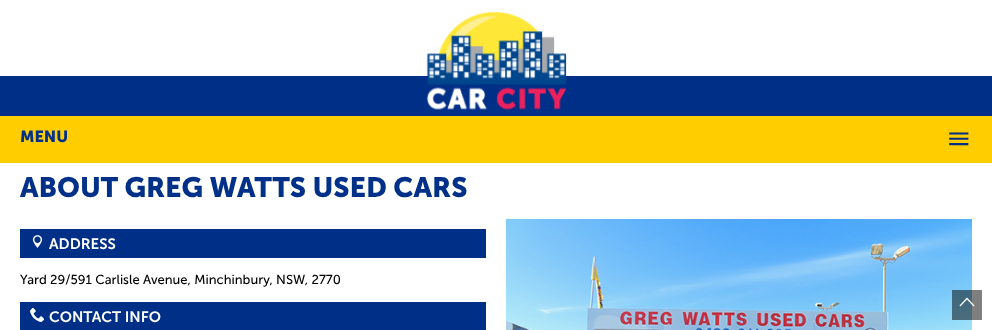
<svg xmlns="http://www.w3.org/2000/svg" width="992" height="330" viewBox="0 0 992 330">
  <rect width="100%" height="100%" fill="#ffffff"/>
  <rect x="0" y="116" width="992" height="47" fill="#ffcd00"/>
  <rect x="0" y="76" width="992" height="40" fill="#002f87"/>
  <image x="426" y="12" width="141" height="98" href="img1.png"/>
  <text x="20" y="142" font-family="'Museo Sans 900'" font-size="16" font-weight="bold" fill="#003087">MENU</text>
  <image x="949" y="132" width="20" height="14" href="img2.png"/>
  <text x="20" y="197" font-family="'Museo Sans 900'" font-size="28" font-weight="bold" fill="#003087">ABOUT GREG WATTS USED CARS</text>
  <rect x="20" y="229" width="466" height="29" fill="#002f87"/>
  <image x="32" y="235" width="11" height="13" href="img3.png"/>
  <text x="49" y="249" font-family="'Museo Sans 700'" font-size="15" font-weight="600" fill="#ffffff">ADDRESS</text>
  <text x="20" y="284" font-family="'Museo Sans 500'" font-size="13" fill="#000000">Yard 29/591 Carlisle Avenue, Minchinbury, NSW, 2770</text>
  <rect x="20" y="302" width="466" height="28" fill="#002f87"/>
  <image x="30" y="308" width="14" height="14" href="img4.png"/>
  <text x="49" y="322" font-family="'Museo Sans 700'" font-size="15" font-weight="600" fill="#ffffff">CONTACT INFO</text>
  <image x="506" y="219" width="466" height="111" href="img5.png"/>
  <rect x="952" y="290" width="30" height="30" fill="#000000" fill-opacity="0.5"/>
  <image x="959" y="297" width="16" height="10" href="img6.png"/>
</svg>
